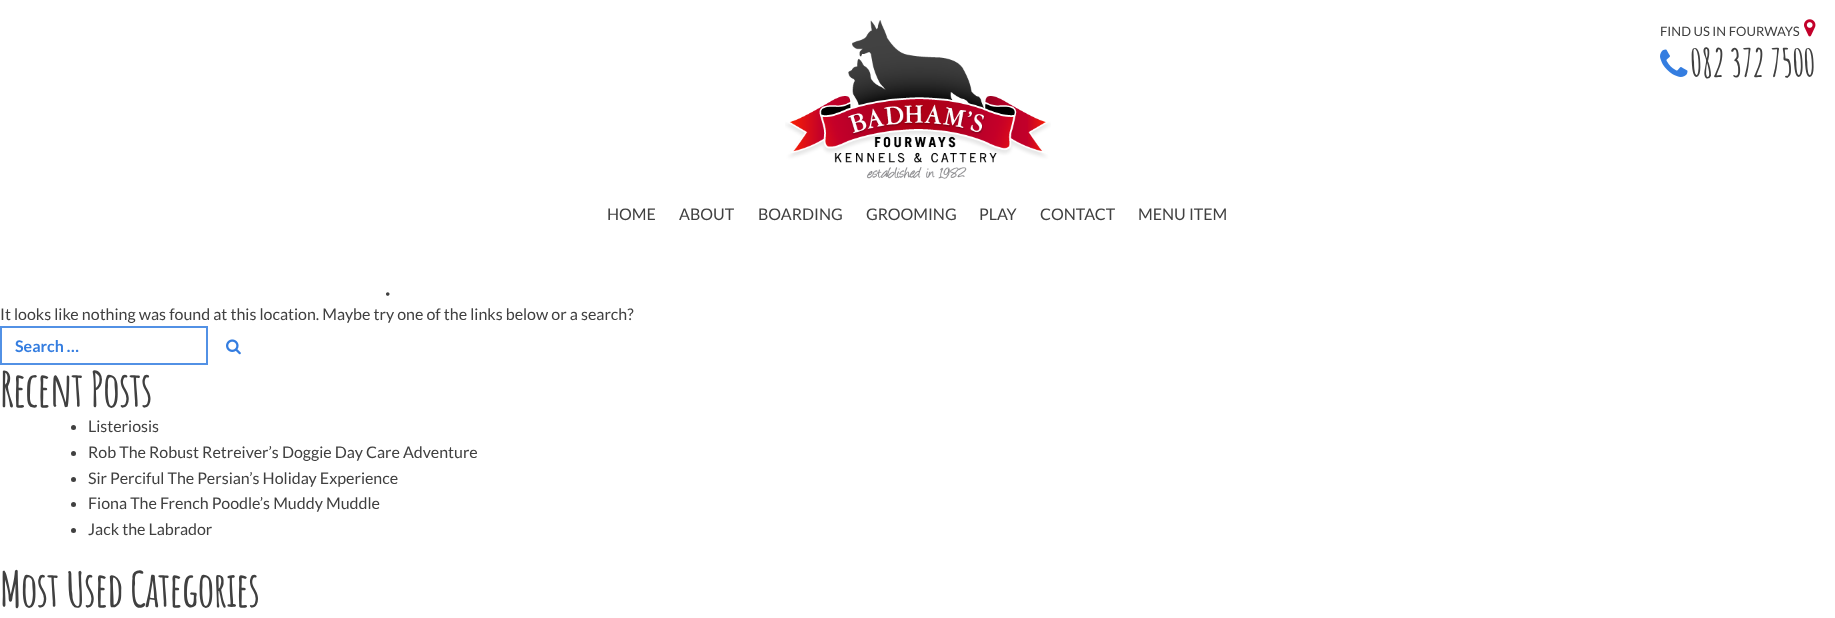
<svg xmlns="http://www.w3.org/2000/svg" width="1835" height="618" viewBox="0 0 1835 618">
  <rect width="100%" height="100%" fill="#ffffff"/>
  <image x="785" y="20" width="266" height="159" href="img1.png"/>
  <text x="1660" y="36" font-family="Lato" font-size="13" fill="#404040">FIND US IN FOURWAYS</text>
  <image x="1804" y="19" width="12" height="18" href="img2.png"/>
  <image x="1660" y="49" width="28" height="28" href="img3.png"/>
  <text x="1690" y="77" font-family="Amatic SC" font-size="38" font-weight="bold" letter-spacing="-1" fill="#404040">082 372 7500</text>
  <text x="607" y="220" font-family="Lato" font-size="16" fill="#404040">HOME</text>
  <text x="679" y="220" font-family="Lato" font-size="16" fill="#404040">ABOUT</text>
  <text x="758" y="220" font-family="Lato" font-size="16" fill="#404040">BOARDING</text>
  <text x="866" y="220" font-family="Lato" font-size="16" fill="#404040">GROOMING</text>
  <text x="979" y="220" font-family="Lato" font-size="16" fill="#404040">PLAY</text>
  <text x="1040" y="220" font-family="Lato" font-size="16" fill="#404040">CONTACT</text>
  <text x="1138" y="220" font-family="Lato" font-size="16" fill="#404040">MENU ITEM</text>
  <text x="381" y="295" font-family="Amatic SC" font-size="48" font-weight="bold" letter-spacing="-1.2" fill="#404040">.</text>
  <text x="0" y="320" font-family="Lato" font-size="16" fill="#404040">It looks like nothing was found at this location. Maybe try one of the links below or a search?</text>
  <rect x="1" y="327" width="206" height="37" fill="none" stroke="#5291e5" stroke-width="2"/>
  <text x="15" y="352" font-family="Lato" font-size="16" font-weight="bold" fill="#347de0">Search …</text>
  <image x="226" y="339" width="15" height="16" href="img4.png"/>
  <text x="0" y="407" font-family="Amatic SC" font-size="48" font-weight="bold" letter-spacing="-1.2" fill="#404040">Recent Posts</text>
  <circle cx="73.5" cy="427.5" r="2.5" fill="#404040"/>
  <text x="88" y="432" font-family="Lato" font-size="16" fill="#404040">Listeriosis</text>
  <circle cx="73.5" cy="453.5" r="2.5" fill="#404040"/>
  <text x="88" y="458" font-family="Lato" font-size="16" fill="#404040">Rob The Robust Retreiver’s Doggie Day Care Adventure</text>
  <circle cx="73.5" cy="479.5" r="2.5" fill="#404040"/>
  <text x="88" y="484" font-family="Lato" font-size="16" fill="#404040">Sir Perciful The Persian’s Holiday Experience</text>
  <circle cx="73.5" cy="504.5" r="2.5" fill="#404040"/>
  <text x="88" y="509" font-family="Lato" font-size="16" fill="#404040">Fiona The French Poodle’s Muddy Muddle</text>
  <circle cx="73.5" cy="530.5" r="2.5" fill="#404040"/>
  <text x="88" y="535" font-family="Lato" font-size="16" fill="#404040">Jack the Labrador</text>
  <text x="0" y="607" font-family="Amatic SC" font-size="48" font-weight="bold" letter-spacing="-1.2" fill="#404040">Most Used Categories</text>
</svg>
